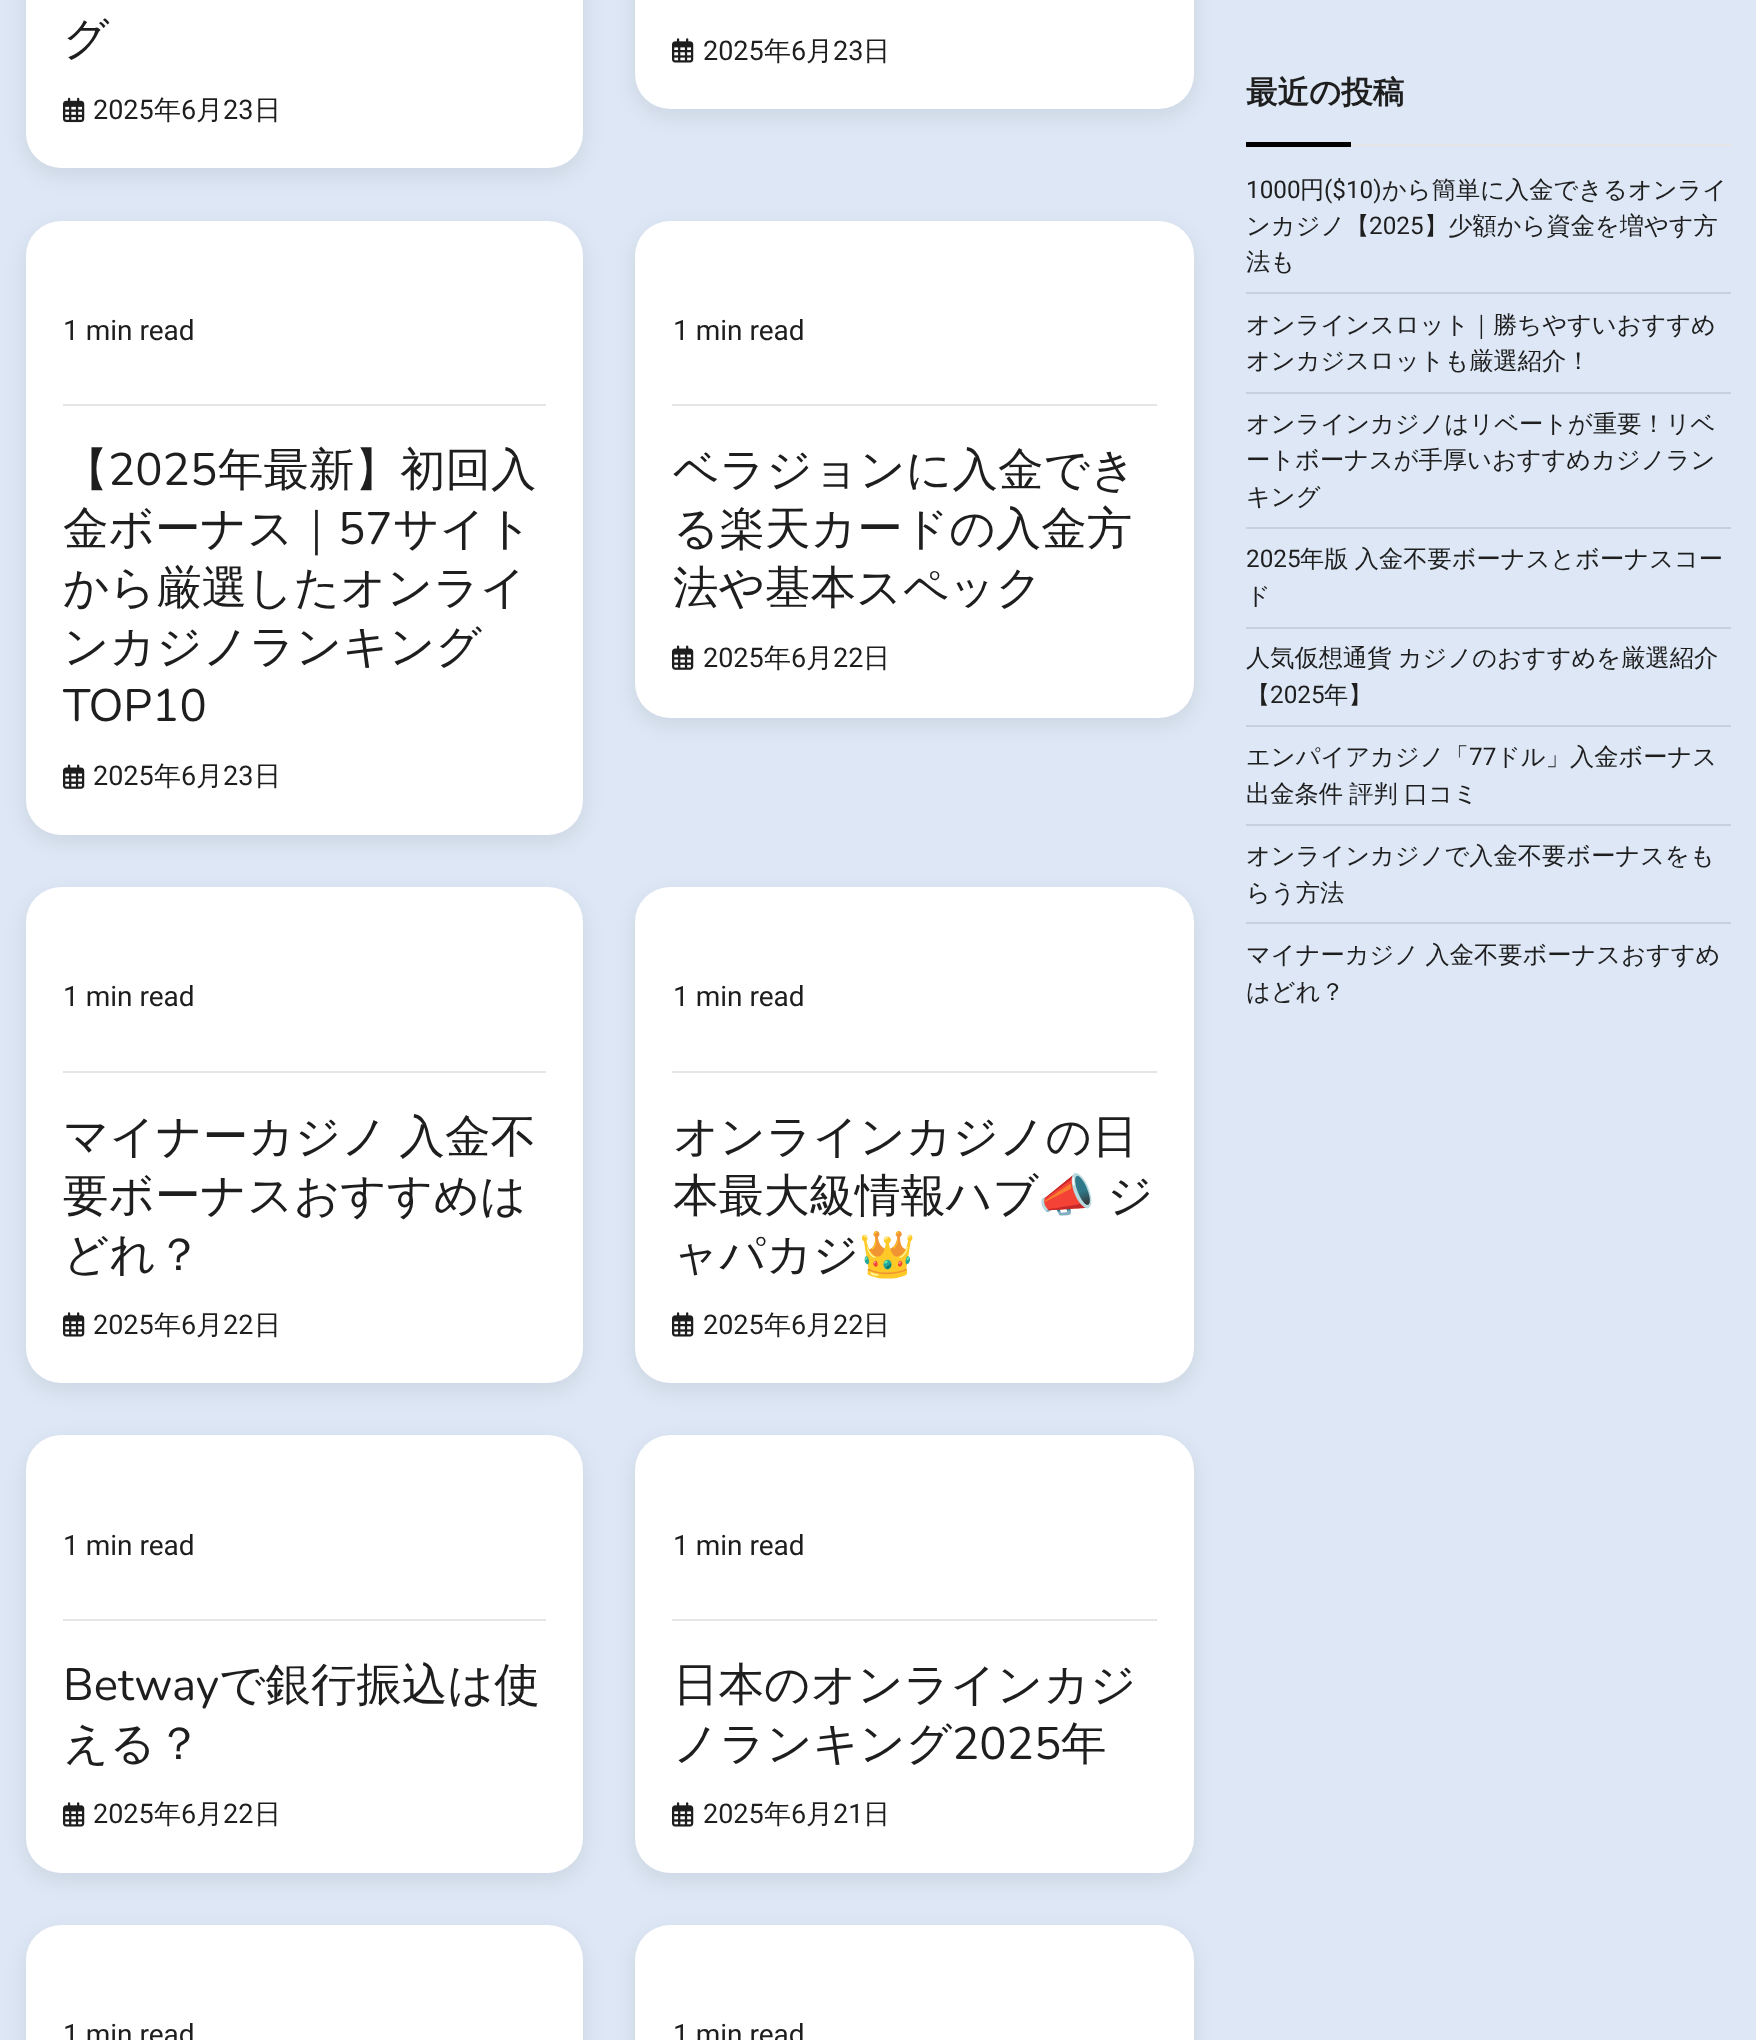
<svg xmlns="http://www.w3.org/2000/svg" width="1756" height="2040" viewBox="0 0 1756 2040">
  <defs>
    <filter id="blur1" x="-50%" y="-200%" width="200%" height="500%"><feGaussianBlur stdDeviation="10.5"/></filter>
  </defs>
  <rect width="100%" height="100%" fill="#dde7f5"/>
  <rect x="26" y="-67" width="557" height="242" rx="35" fill="#000000" fill-opacity="0.08" filter="url(#blur1)"/>
  <rect x="26" y="-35" width="557" height="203" rx="35" fill="#ffffff"/>
  <text x="63" y="54" font-family="WenQuanYi Zen Hei" font-size="45.5" font-weight="500" fill="#1e1e1e">グ</text>
  <image x="63" y="97" width="22" height="26" href="img1.png"/>
  <text x="93" y="119" font-family="Roboto" font-size="27" fill="#1e1e1e">2025</text>
  <text x="154" y="119" font-family="WenQuanYi Zen Hei" font-size="27" font-weight="500" fill="#1e1e1e">年</text>
  <text x="181" y="119" font-family="Roboto" font-size="27" fill="#1e1e1e">6</text>
  <text x="196" y="119" font-family="WenQuanYi Zen Hei" font-size="27" font-weight="500" fill="#1e1e1e">月</text>
  <text x="223" y="119" font-family="Roboto" font-size="27" fill="#1e1e1e">23</text>
  <text x="254" y="119" font-family="WenQuanYi Zen Hei" font-size="27" font-weight="500" fill="#1e1e1e">日</text>
  <rect x="635" y="-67" width="559" height="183" rx="35" fill="#000000" fill-opacity="0.08" filter="url(#blur1)"/>
  <rect x="635" y="-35" width="559" height="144" rx="35" fill="#ffffff"/>
  <image x="672" y="38" width="22" height="25" href="img2.png"/>
  <text x="703" y="60" font-family="Roboto" font-size="27" fill="#1e1e1e">2025</text>
  <text x="764" y="60" font-family="WenQuanYi Zen Hei" font-size="27" font-weight="500" fill="#1e1e1e">年</text>
  <text x="791" y="60" font-family="Roboto" font-size="27" fill="#1e1e1e">6</text>
  <text x="806" y="60" font-family="WenQuanYi Zen Hei" font-size="27" font-weight="500" fill="#1e1e1e">月</text>
  <text x="833" y="60" font-family="Roboto" font-size="27" fill="#1e1e1e">23</text>
  <text x="863" y="60" font-family="WenQuanYi Zen Hei" font-size="27" font-weight="500" fill="#1e1e1e">日</text>
  <rect x="26" y="228" width="557" height="614" rx="35" fill="#000000" fill-opacity="0.08" filter="url(#blur1)"/>
  <rect x="26" y="221" width="557" height="614" rx="35" fill="#ffffff"/>
  <rect x="63" y="404" width="483" height="2" fill="#e5e5e5"/>
  <text x="63" y="340" font-family="Roboto" font-size="28" fill="#1e1e1e">1 min read</text>
  <text x="63" y="485" font-family="WenQuanYi Zen Hei" font-size="45.5" font-weight="500" fill="#1e1e1e">【</text>
  <text x="108" y="485" font-family="Nunito" font-size="45.5" fill="#1e1e1e">2025</text>
  <text x="218" y="485" font-family="WenQuanYi Zen Hei" font-size="45.5" font-weight="500" fill="#1e1e1e">年最新】初回入</text>
  <text x="63" y="544" font-family="WenQuanYi Zen Hei" font-size="45.5" font-weight="500" fill="#1e1e1e">金ボーナス｜</text>
  <text x="338" y="544" font-family="Nunito" font-size="45.5" fill="#1e1e1e">57</text>
  <text x="393" y="544" font-family="WenQuanYi Zen Hei" font-size="45.5" font-weight="500" fill="#1e1e1e">サイト</text>
  <text x="63" y="603" font-family="WenQuanYi Zen Hei" font-size="45.5" font-weight="500" fill="#1e1e1e">から厳選したオンライ</text>
  <text x="63" y="662" font-family="WenQuanYi Zen Hei" font-size="45.5" font-weight="500" fill="#1e1e1e">ンカジノランキング</text>
  <text x="63" y="721" font-family="Nunito" font-size="45.5" fill="#1e1e1e">TOP10</text>
  <image x="63" y="764" width="22" height="25" href="img3.png"/>
  <text x="93" y="785" font-family="Roboto" font-size="27" fill="#1e1e1e">2025</text>
  <text x="154" y="785" font-family="WenQuanYi Zen Hei" font-size="27" font-weight="500" fill="#1e1e1e">年</text>
  <text x="181" y="785" font-family="Roboto" font-size="27" fill="#1e1e1e">6</text>
  <text x="196" y="785" font-family="WenQuanYi Zen Hei" font-size="27" font-weight="500" fill="#1e1e1e">月</text>
  <text x="223" y="785" font-family="Roboto" font-size="27" fill="#1e1e1e">23</text>
  <text x="254" y="785" font-family="WenQuanYi Zen Hei" font-size="27" font-weight="500" fill="#1e1e1e">日</text>
  <rect x="635" y="228" width="559" height="497" rx="35" fill="#000000" fill-opacity="0.08" filter="url(#blur1)"/>
  <rect x="635" y="221" width="559" height="497" rx="35" fill="#ffffff"/>
  <rect x="672" y="404" width="485" height="2" fill="#e5e5e5"/>
  <text x="673" y="340" font-family="Roboto" font-size="28" fill="#1e1e1e">1 min read</text>
  <text x="673" y="485" font-family="WenQuanYi Zen Hei" font-size="45.5" font-weight="500" fill="#1e1e1e">ベラジョンに入金でき</text>
  <text x="673" y="544" font-family="WenQuanYi Zen Hei" font-size="45.5" font-weight="500" fill="#1e1e1e">る楽天カードの入金方</text>
  <text x="673" y="603" font-family="WenQuanYi Zen Hei" font-size="45.5" font-weight="500" fill="#1e1e1e">法や基本スペック</text>
  <image x="672" y="645" width="22" height="25" href="img3.png"/>
  <text x="703" y="667" font-family="Roboto" font-size="27" fill="#1e1e1e">2025</text>
  <text x="764" y="667" font-family="WenQuanYi Zen Hei" font-size="27" font-weight="500" fill="#1e1e1e">年</text>
  <text x="791" y="667" font-family="Roboto" font-size="27" fill="#1e1e1e">6</text>
  <text x="806" y="667" font-family="WenQuanYi Zen Hei" font-size="27" font-weight="500" fill="#1e1e1e">月</text>
  <text x="833" y="667" font-family="Roboto" font-size="27" fill="#1e1e1e">22</text>
  <text x="863" y="667" font-family="WenQuanYi Zen Hei" font-size="27" font-weight="500" fill="#1e1e1e">日</text>
  <rect x="26" y="894" width="557" height="496" rx="35" fill="#000000" fill-opacity="0.08" filter="url(#blur1)"/>
  <rect x="26" y="887" width="557" height="496" rx="35" fill="#ffffff"/>
  <rect x="63" y="1071" width="483" height="2" fill="#e5e5e5"/>
  <text x="63" y="1006" font-family="Roboto" font-size="28" fill="#1e1e1e">1 min read</text>
  <text x="63" y="1152" word-spacing="-2" font-family="WenQuanYi Zen Hei" font-size="45.5" font-weight="500" fill="#1e1e1e">マイナーカジノ 入金不</text>
  <text x="63" y="1211" font-family="WenQuanYi Zen Hei" font-size="45.5" font-weight="500" fill="#1e1e1e">要ボーナスおすすめは</text>
  <text x="63" y="1270" font-family="WenQuanYi Zen Hei" font-size="45.5" font-weight="500" fill="#1e1e1e">どれ？</text>
  <image x="63" y="1312" width="22" height="25" href="img2.png"/>
  <text x="93" y="1334" font-family="Roboto" font-size="27" fill="#1e1e1e">2025</text>
  <text x="154" y="1334" font-family="WenQuanYi Zen Hei" font-size="27" font-weight="500" fill="#1e1e1e">年</text>
  <text x="181" y="1334" font-family="Roboto" font-size="27" fill="#1e1e1e">6</text>
  <text x="196" y="1334" font-family="WenQuanYi Zen Hei" font-size="27" font-weight="500" fill="#1e1e1e">月</text>
  <text x="223" y="1334" font-family="Roboto" font-size="27" fill="#1e1e1e">22</text>
  <text x="254" y="1334" font-family="WenQuanYi Zen Hei" font-size="27" font-weight="500" fill="#1e1e1e">日</text>
  <rect x="635" y="894" width="559" height="496" rx="35" fill="#000000" fill-opacity="0.08" filter="url(#blur1)"/>
  <rect x="635" y="887" width="559" height="496" rx="35" fill="#ffffff"/>
  <rect x="672" y="1071" width="485" height="2" fill="#e5e5e5"/>
  <text x="673" y="1006" font-family="Roboto" font-size="28" fill="#1e1e1e">1 min read</text>
  <text x="673" y="1152" font-family="WenQuanYi Zen Hei" font-size="45.5" font-weight="500" fill="#1e1e1e">オンラインカジノの日</text>
  <text x="673" y="1211" font-family="WenQuanYi Zen Hei" font-size="45.5" font-weight="500" fill="#1e1e1e">本最大級情報ハブ</text>
  <text x="1038" y="1211" font-family="Noto Color Emoji" font-size="45.5" fill="#1e1e1e">📣</text>
  <text x="1107" y="1211" font-family="WenQuanYi Zen Hei" font-size="45.5" font-weight="500" fill="#1e1e1e">ジ</text>
  <text x="673" y="1270" font-family="WenQuanYi Zen Hei" font-size="45.5" font-weight="500" fill="#1e1e1e">ャパカジ</text>
  <text x="859" y="1270" font-family="Noto Color Emoji" font-size="45.5" fill="#1e1e1e">👑</text>
  <image x="672" y="1312" width="22" height="25" href="img2.png"/>
  <text x="703" y="1334" font-family="Roboto" font-size="27" fill="#1e1e1e">2025</text>
  <text x="764" y="1334" font-family="WenQuanYi Zen Hei" font-size="27" font-weight="500" fill="#1e1e1e">年</text>
  <text x="791" y="1334" font-family="Roboto" font-size="27" fill="#1e1e1e">6</text>
  <text x="806" y="1334" font-family="WenQuanYi Zen Hei" font-size="27" font-weight="500" fill="#1e1e1e">月</text>
  <text x="833" y="1334" font-family="Roboto" font-size="27" fill="#1e1e1e">22</text>
  <text x="863" y="1334" font-family="WenQuanYi Zen Hei" font-size="27" font-weight="500" fill="#1e1e1e">日</text>
  <rect x="26" y="1442" width="557" height="438" rx="35" fill="#000000" fill-opacity="0.08" filter="url(#blur1)"/>
  <rect x="26" y="1435" width="557" height="438" rx="35" fill="#ffffff"/>
  <rect x="63" y="1619" width="483" height="2" fill="#e5e5e5"/>
  <text x="63" y="1555" font-family="Roboto" font-size="28" fill="#1e1e1e">1 min read</text>
  <text x="63" y="1700" font-family="Nunito" font-size="45.5" fill="#1e1e1e">Betway</text>
  <text x="219" y="1700" font-family="WenQuanYi Zen Hei" font-size="45.5" font-weight="500" fill="#1e1e1e">で銀行振込は使</text>
  <text x="63" y="1759" font-family="WenQuanYi Zen Hei" font-size="45.5" font-weight="500" fill="#1e1e1e">える？</text>
  <image x="63" y="1802" width="22" height="25" href="img2.png"/>
  <text x="93" y="1823" font-family="Roboto" font-size="27" fill="#1e1e1e">2025</text>
  <text x="154" y="1823" font-family="WenQuanYi Zen Hei" font-size="27" font-weight="500" fill="#1e1e1e">年</text>
  <text x="181" y="1823" font-family="Roboto" font-size="27" fill="#1e1e1e">6</text>
  <text x="196" y="1823" font-family="WenQuanYi Zen Hei" font-size="27" font-weight="500" fill="#1e1e1e">月</text>
  <text x="223" y="1823" font-family="Roboto" font-size="27" fill="#1e1e1e">22</text>
  <text x="254" y="1823" font-family="WenQuanYi Zen Hei" font-size="27" font-weight="500" fill="#1e1e1e">日</text>
  <rect x="635" y="1442" width="559" height="438" rx="35" fill="#000000" fill-opacity="0.08" filter="url(#blur1)"/>
  <rect x="635" y="1435" width="559" height="438" rx="35" fill="#ffffff"/>
  <rect x="672" y="1619" width="485" height="2" fill="#e5e5e5"/>
  <text x="673" y="1555" font-family="Roboto" font-size="28" fill="#1e1e1e">1 min read</text>
  <text x="673" y="1700" font-family="WenQuanYi Zen Hei" font-size="45.5" font-weight="500" fill="#1e1e1e">日本のオンラインカジ</text>
  <text x="673" y="1759" font-family="WenQuanYi Zen Hei" font-size="45.5" font-weight="500" fill="#1e1e1e">ノランキング</text>
  <text x="952" y="1759" font-family="Nunito" font-size="45.5" fill="#1e1e1e">2025</text>
  <text x="1061" y="1759" font-family="WenQuanYi Zen Hei" font-size="45.5" font-weight="500" fill="#1e1e1e">年</text>
  <image x="672" y="1802" width="22" height="25" href="img2.png"/>
  <text x="703" y="1823" font-family="Roboto" font-size="27" fill="#1e1e1e">2025</text>
  <text x="764" y="1823" font-family="WenQuanYi Zen Hei" font-size="27" font-weight="500" fill="#1e1e1e">年</text>
  <text x="791" y="1823" font-family="Roboto" font-size="27" fill="#1e1e1e">6</text>
  <text x="806" y="1823" font-family="WenQuanYi Zen Hei" font-size="27" font-weight="500" fill="#1e1e1e">月</text>
  <text x="833" y="1823" font-family="Roboto" font-size="27" fill="#1e1e1e">21</text>
  <text x="863" y="1823" font-family="WenQuanYi Zen Hei" font-size="27" font-weight="500" fill="#1e1e1e">日</text>
  <rect x="26" y="1932" width="557" height="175" rx="35" fill="#000000" fill-opacity="0.08" filter="url(#blur1)"/>
  <rect x="26" y="1925" width="557" height="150" rx="35" fill="#ffffff"/>
  <text x="63" y="2044" font-family="Roboto" font-size="28" fill="#1e1e1e">1 min read</text>
  <rect x="635" y="1932" width="559" height="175" rx="35" fill="#000000" fill-opacity="0.08" filter="url(#blur1)"/>
  <rect x="635" y="1925" width="559" height="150" rx="35" fill="#ffffff"/>
  <text x="673" y="2044" font-family="Roboto" font-size="28" fill="#1e1e1e">1 min read</text>
  <rect x="1351" y="144" width="380" height="2" fill="#e5e5e5"/>
  <text x="1246" y="103" font-family="WenQuanYi Zen Hei" font-size="31.5" font-weight="bold" fill="#1e1e1e">最近の投稿</text>
  <rect x="1246" y="142" width="105" height="5" fill="#000000"/>
  <rect x="1246" y="292" width="485" height="2" fill="#c7d0dd"/>
  <text x="1246" y="198" font-family="Roboto" font-size="24.25" fill="#1e1e1e">1000</text>
  <text x="1300" y="198" font-family="WenQuanYi Zen Hei" font-size="24.25" font-weight="500" fill="#1e1e1e">円</text>
  <text x="1324" y="198" font-family="Roboto" font-size="24.25" fill="#1e1e1e">($10)</text>
  <text x="1382" y="198" font-family="WenQuanYi Zen Hei" font-size="24.25" font-weight="500" fill="#1e1e1e">から簡単に入金できるオンライ</text>
  <text x="1246" y="234" font-family="WenQuanYi Zen Hei" font-size="24.25" font-weight="500" fill="#1e1e1e">ンカジノ【</text>
  <text x="1369" y="234" font-family="Roboto" font-size="24.25" fill="#1e1e1e">2025</text>
  <text x="1424" y="234" font-family="WenQuanYi Zen Hei" font-size="24.25" font-weight="500" fill="#1e1e1e">】少額から資金を増やす方</text>
  <text x="1246" y="270" font-family="WenQuanYi Zen Hei" font-size="24.25" font-weight="500" fill="#1e1e1e">法も</text>
  <rect x="1246" y="392" width="485" height="2" fill="#c7d0dd"/>
  <text x="1246" y="333" font-family="WenQuanYi Zen Hei" font-size="24.25" font-weight="500" fill="#1e1e1e">オンラインスロット｜勝ちやすいおすすめ</text>
  <text x="1246" y="369" font-family="WenQuanYi Zen Hei" font-size="24.25" font-weight="500" fill="#1e1e1e">オンカジスロットも厳選紹介！</text>
  <rect x="1246" y="527" width="485" height="2" fill="#c7d0dd"/>
  <text x="1246" y="432" font-family="WenQuanYi Zen Hei" font-size="24.25" font-weight="500" fill="#1e1e1e">オンラインカジノはリベートが重要！リベ</text>
  <text x="1246" y="468" font-family="WenQuanYi Zen Hei" font-size="24.25" font-weight="500" fill="#1e1e1e">ートボーナスが手厚いおすすめカジノラン</text>
  <text x="1246" y="505" font-family="WenQuanYi Zen Hei" font-size="24.25" font-weight="500" fill="#1e1e1e">キング</text>
  <rect x="1246" y="627" width="485" height="2" fill="#c7d0dd"/>
  <text x="1246" y="567" font-family="Roboto" font-size="24.25" fill="#1e1e1e">2025</text>
  <text x="1300" y="567" word-spacing="-1" font-family="WenQuanYi Zen Hei" font-size="24.25" font-weight="500" fill="#1e1e1e">年版 入金不要ボーナスとボーナスコー</text>
  <text x="1246" y="604" font-family="WenQuanYi Zen Hei" font-size="24.25" font-weight="500" fill="#1e1e1e">ド</text>
  <rect x="1246" y="725" width="485" height="2" fill="#c7d0dd"/>
  <text x="1246" y="666" word-spacing="-1" font-family="WenQuanYi Zen Hei" font-size="24.25" font-weight="500" fill="#1e1e1e">人気仮想通貨 カジノのおすすめを厳選紹介</text>
  <text x="1246" y="703" font-family="WenQuanYi Zen Hei" font-size="24.25" font-weight="500" fill="#1e1e1e">【</text>
  <text x="1270" y="703" font-family="Roboto" font-size="24.25" fill="#1e1e1e">2025</text>
  <text x="1324" y="703" font-family="WenQuanYi Zen Hei" font-size="24.25" font-weight="500" fill="#1e1e1e">年】</text>
  <rect x="1246" y="824" width="485" height="2" fill="#c7d0dd"/>
  <text x="1246" y="765" font-family="WenQuanYi Zen Hei" font-size="24.25" font-weight="500" fill="#1e1e1e">エンパイアカジノ「</text>
  <text x="1469" y="765" font-family="Roboto" font-size="24.25" fill="#1e1e1e">77</text>
  <text x="1496" y="765" font-family="WenQuanYi Zen Hei" font-size="24.25" font-weight="500" fill="#1e1e1e">ドル」入金ボーナス</text>
  <text x="1246" y="802" word-spacing="-1" font-family="WenQuanYi Zen Hei" font-size="24.25" font-weight="500" fill="#1e1e1e">出金条件 評判 口コミ</text>
  <rect x="1246" y="922" width="485" height="2" fill="#c7d0dd"/>
  <text x="1246" y="864" font-family="WenQuanYi Zen Hei" font-size="24.25" font-weight="500" fill="#1e1e1e">オンラインカジノで入金不要ボーナスをも</text>
  <text x="1246" y="901" font-family="WenQuanYi Zen Hei" font-size="24.25" font-weight="500" fill="#1e1e1e">らう方法</text>
  <text x="1246" y="963" word-spacing="-1" font-family="WenQuanYi Zen Hei" font-size="24.25" font-weight="500" fill="#1e1e1e">マイナーカジノ 入金不要ボーナスおすすめ</text>
  <text x="1246" y="1000" font-family="WenQuanYi Zen Hei" font-size="24.25" font-weight="500" fill="#1e1e1e">はどれ？</text>
</svg>
